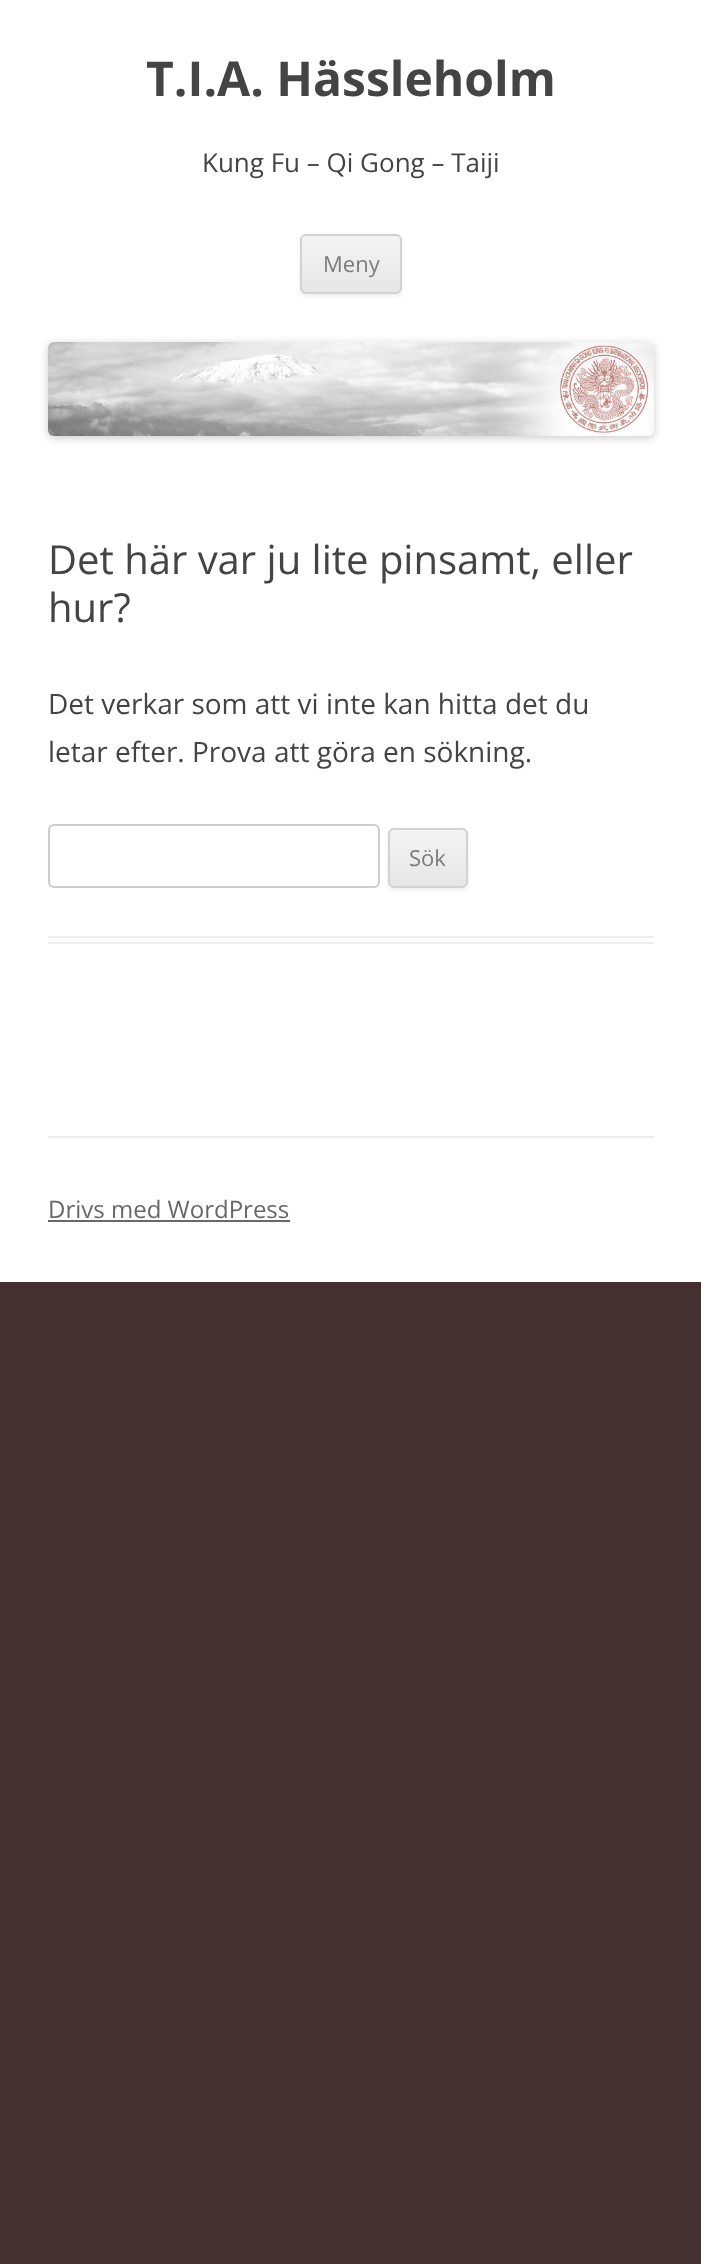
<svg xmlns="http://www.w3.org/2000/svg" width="701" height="2264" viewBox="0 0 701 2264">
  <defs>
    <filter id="blur1" x="-50%" y="-200%" width="200%" height="500%"><feGaussianBlur stdDeviation="2"/></filter>
    <clipPath id="clip1"><rect x="300" y="234" width="102" height="60" rx="6"/></clipPath>
    <linearGradient id="g1" gradientUnits="userSpaceOnUse" x1="351" y1="236" x2="351" y2="292"><stop offset="0" stop-color="#f4f4f4"/><stop offset="1" stop-color="#e6e6e6"/></linearGradient>
    <filter id="blur2" x="-50%" y="-200%" width="200%" height="500%"><feGaussianBlur stdDeviation="4"/></filter>
    <clipPath id="clip2"><rect x="388" y="828" width="80" height="60" rx="6"/></clipPath>
    <linearGradient id="g2" gradientUnits="userSpaceOnUse" x1="428" y1="830" x2="428" y2="886"><stop offset="0" stop-color="#f4f4f4"/><stop offset="1" stop-color="#e6e6e6"/></linearGradient>
  </defs>
  <rect width="100%" height="100%" fill="#443030"/>
  <rect x="0" y="0" width="701" height="1282" fill="#ffffff"/>
  <text x="146" y="96" font-family="Open Sans" font-size="48" font-weight="bold" fill="#444444">T.I.A. Hässleholm</text>
  <text x="202" y="172" font-family="Open Sans" font-size="26" fill="#444444">Kung Fu – Qi Gong – Taiji</text>
  <rect x="300" y="236" width="102" height="60" rx="6" fill="#404040" fill-opacity="0.1" filter="url(#blur1)"/>
  <g clip-path="url(#clip1)">
    <rect x="300" y="236" width="102" height="56" fill="url(#g1)"/>
  </g>
  <rect x="301" y="235" width="100" height="58" rx="5" fill="none" stroke="#d2d2d2" stroke-width="2"/>
  <text x="323" y="272" font-family="Open Sans" font-size="22" fill="#7c7c7c">Meny</text>
  <rect x="48" y="344" width="606" height="94" rx="6" fill="#000000" fill-opacity="0.2" filter="url(#blur2)"/>
  <image x="48" y="342" width="606" height="94" href="img1.png"/>
  <rect x="48" y="936" width="606" height="2" fill="#ededed"/>
  <rect x="48" y="942" width="606" height="2" fill="#ededed"/>
  <text x="48" y="574" font-family="Open Sans" font-size="40" fill="#444444">Det här var ju lite pinsamt, eller</text>
  <text x="48" y="622" font-family="Open Sans" font-size="40" fill="#444444">hur?</text>
  <text x="48" y="714" font-family="Open Sans" font-size="28" fill="#444444">Det verkar som att vi inte kan hitta det du</text>
  <text x="48" y="762" font-family="Open Sans" font-size="28" fill="#444444">letar efter. Prova att göra en sökning.</text>
  <rect x="49" y="825" width="330" height="62" rx="5" fill="none" stroke="#cccccc" stroke-width="2"/>
  <rect x="388" y="830" width="80" height="60" rx="6" fill="#404040" fill-opacity="0.1" filter="url(#blur1)"/>
  <g clip-path="url(#clip2)">
    <rect x="388" y="830" width="80" height="56" fill="url(#g2)"/>
  </g>
  <rect x="389" y="829" width="78" height="58" rx="5" fill="none" stroke="#d2d2d2" stroke-width="2"/>
  <text x="409" y="866" font-family="Open Sans" font-size="22" fill="#7c7c7c">Sök</text>
  <rect x="48" y="1136" width="606" height="2" fill="#ededed"/>
  <text x="48" y="1218" font-family="Open Sans" font-size="24" fill="#686868">Drivs med WordPress</text>
  <rect x="48" y="1220" width="242" height="2" fill="#686868"/>
</svg>
